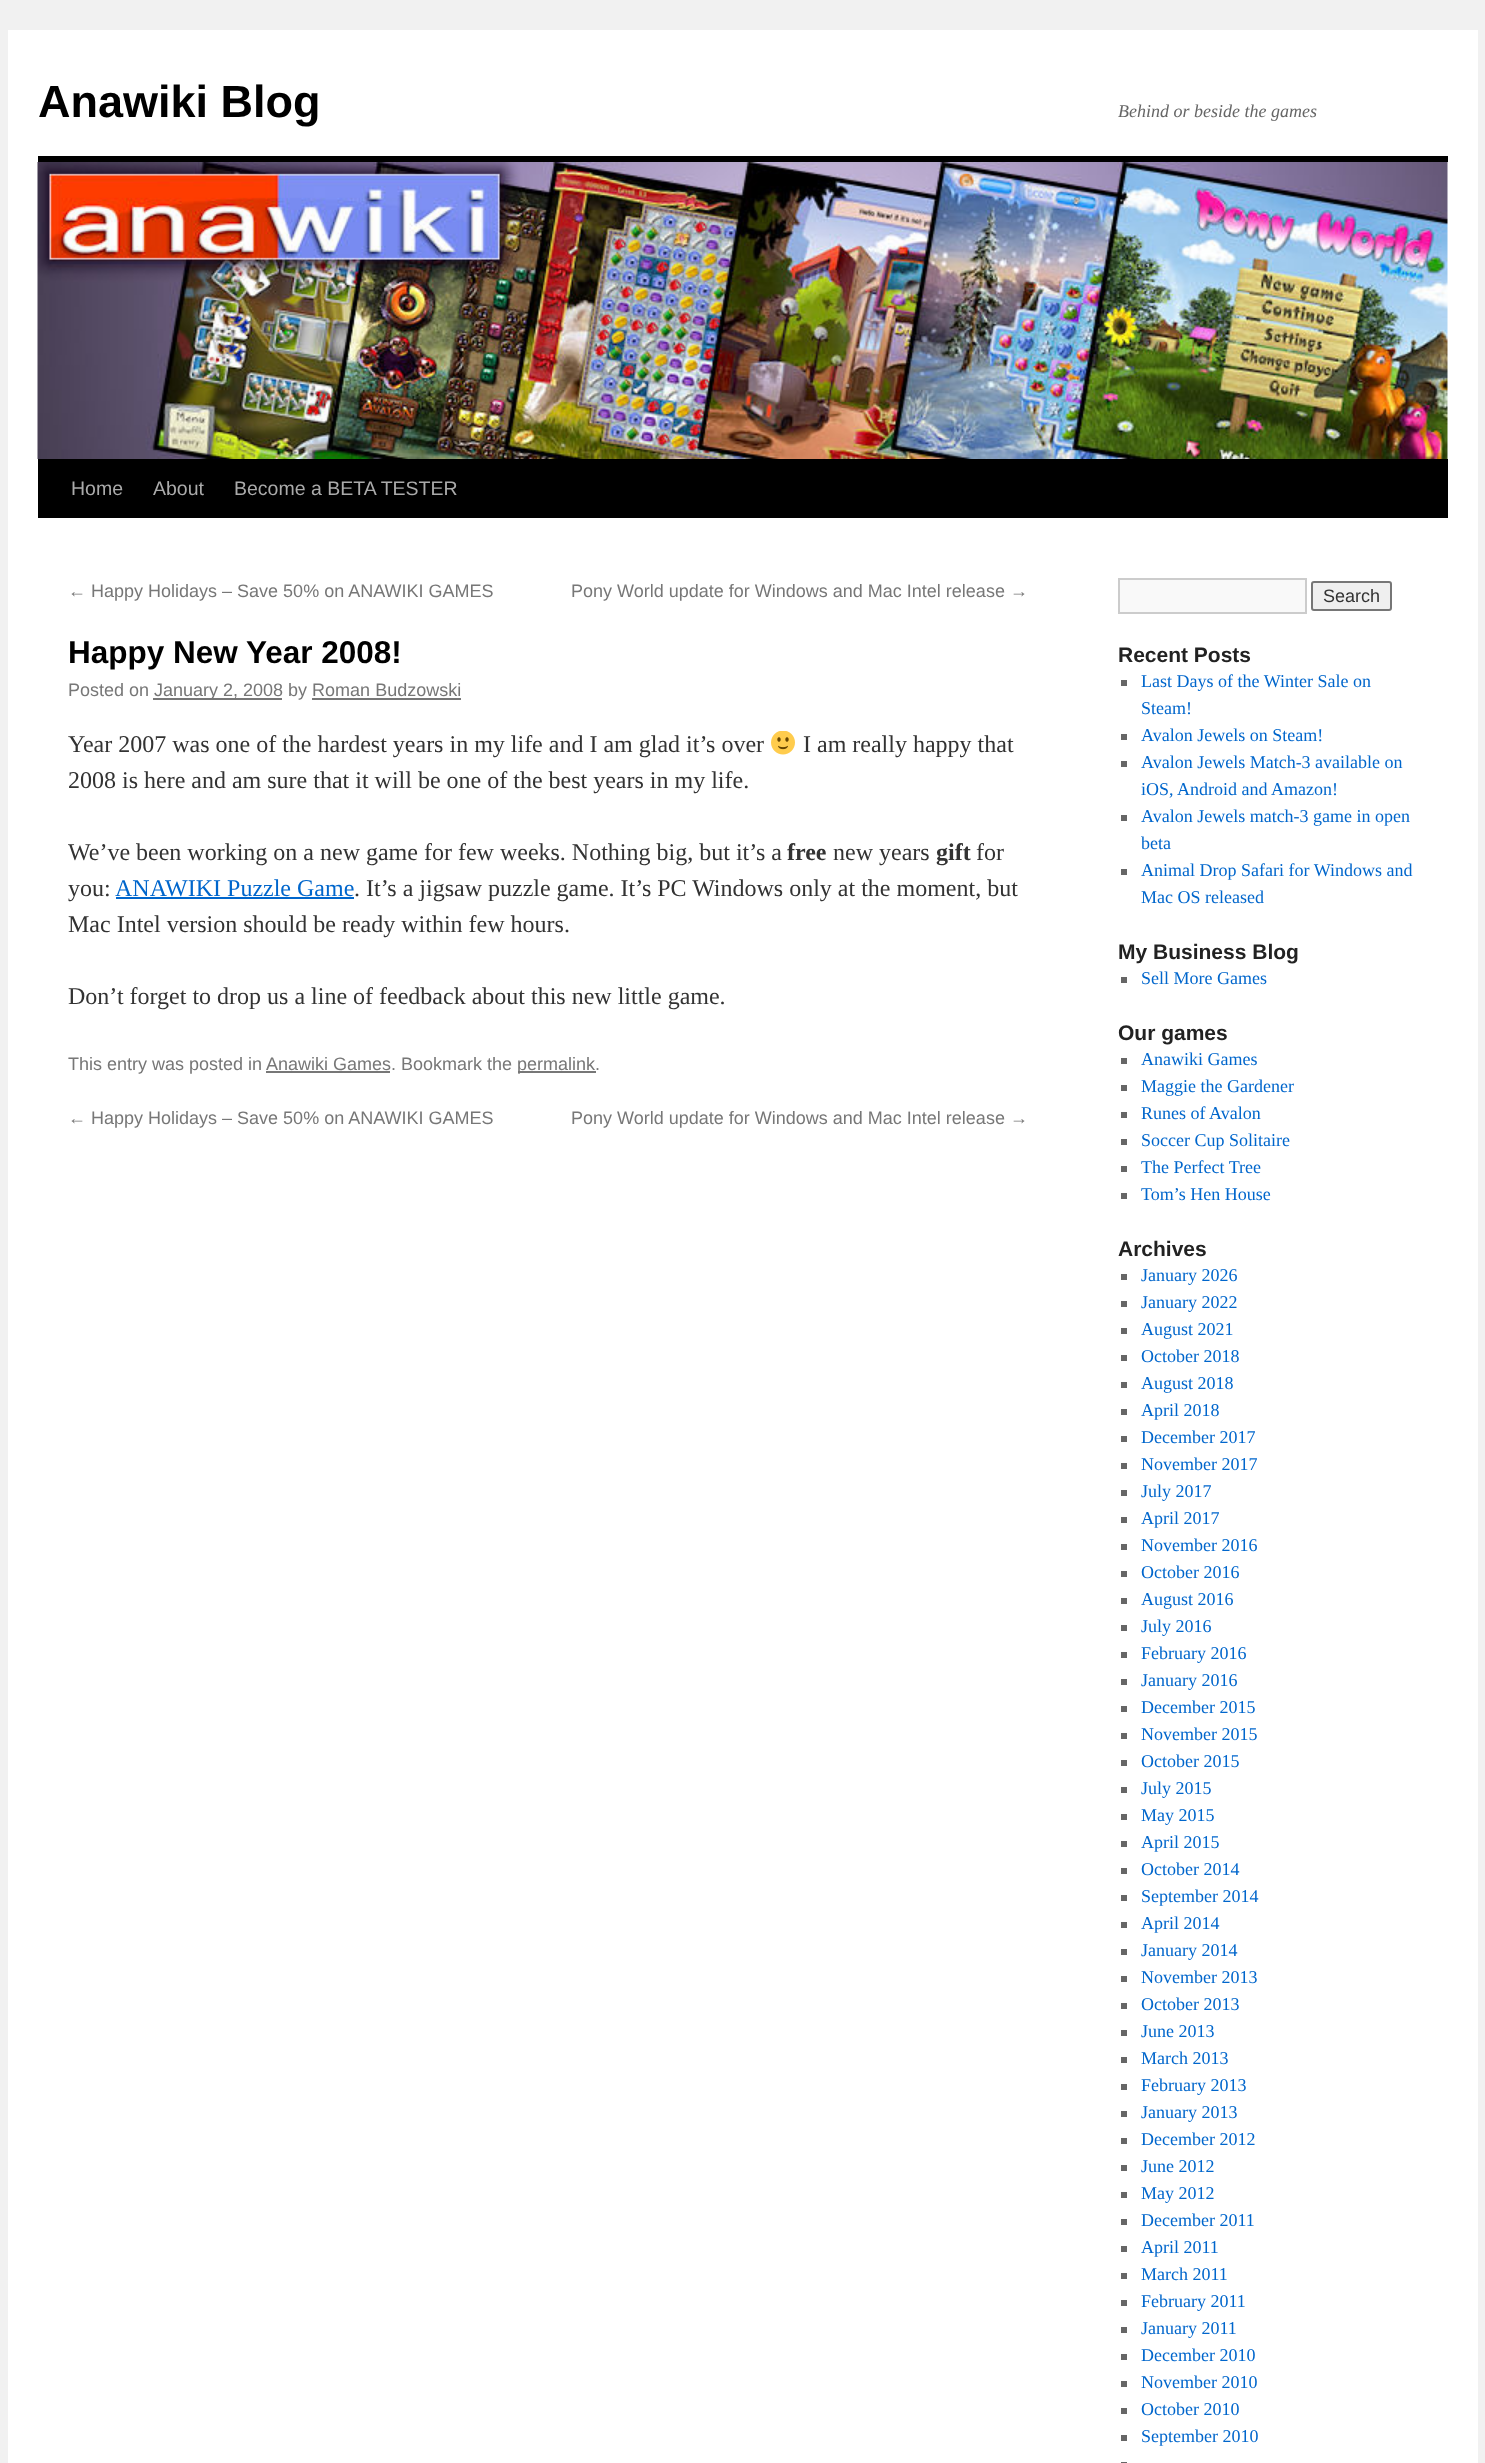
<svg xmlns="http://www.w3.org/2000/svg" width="1485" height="2463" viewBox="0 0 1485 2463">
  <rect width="100%" height="100%" fill="#f1f1f1"/>
  <rect x="8" y="30" width="1470" height="2433" fill="#ffffff"/>
  <text x="38" y="117" font-family="Liberation Sans" font-size="45" font-weight="bold" fill="#000000">Anawiki Blog</text>
  <text x="1118" y="117" font-family="Liberation Serif" font-size="18" font-style="italic" fill="#666666">Behind or beside the games</text>
  <rect x="38" y="156" width="1410" height="6" fill="#000000"/>
  <rect x="38" y="459" width="1410" height="59" fill="#000000"/>
  <image x="37" y="162" width="1411" height="297" href="img1.png"/>
  <text x="71" y="495" font-family="Liberation Sans" font-size="19.5" fill="#aaaaaa">Home</text>
  <text x="153" y="495" font-family="Liberation Sans" font-size="19.5" fill="#aaaaaa">About</text>
  <text x="234" y="495" font-family="Liberation Sans" font-size="19.5" fill="#aaaaaa">Become a BETA TESTER</text>
  <text x="68" y="597" font-family="Liberation Sans" font-size="18" fill="#777777">← Happy Holidays – Save 50% on ANAWIKI GAMES</text>
  <text x="571" y="597" font-family="Liberation Sans" font-size="18" fill="#777777">Pony World update for Windows and Mac Intel release →</text>
  <text x="68" y="663" font-family="Liberation Sans" font-size="31.5" font-weight="bold" fill="#000000">Happy New Year 2008!</text>
  <text x="68" y="696" font-family="Liberation Sans" font-size="18" fill="#777777">Posted on</text>
  <rect x="153" y="698" width="129" height="2" fill="#777777"/>
  <text x="154" y="696" font-family="Liberation Sans" font-size="18" fill="#777777">January 2, 2008 by Roman Budzowski</text>
  <rect x="312" y="698" width="149" height="2" fill="#777777"/>
  <text x="68" y="752" font-family="Liberation Serif" font-size="24" fill="#333333">Year 2007 was one of the hardest years in my life and I am glad it’s over</text>
  <image x="771" y="731" width="24" height="24" href="img2.png"/>
  <text x="803" y="752" font-family="Liberation Serif" font-size="24" fill="#333333">I am really happy that</text>
  <text x="68" y="788" font-family="Liberation Serif" font-size="24" fill="#333333">2008 is here and am sure that it will be one of the best years in my life.</text>
  <text x="68" y="860" font-family="Liberation Serif" font-size="24" fill="#333333">We’ve been working on a new game for few weeks. Nothing big, but it’s a</text>
  <text x="787" y="860" font-family="Liberation Serif" font-size="24" font-weight="bold" fill="#333333">free</text>
  <text x="833" y="860" font-family="Liberation Serif" font-size="24" fill="#333333">new years</text>
  <text x="936" y="860" font-family="Liberation Serif" font-size="24" font-weight="bold" fill="#333333">gift</text>
  <text x="976" y="860" font-family="Liberation Serif" font-size="24" fill="#333333">for</text>
  <text x="68" y="896" font-family="Liberation Serif" font-size="24" fill="#333333">you:</text>
  <text x="115" y="896" font-family="Liberation Serif" font-size="24" fill="#0066cc">ANAWIKI Puzzle Game</text>
  <rect x="116" y="897" width="238" height="2" fill="#0066cc"/>
  <text x="354" y="896" font-family="Liberation Serif" font-size="24" fill="#333333">. It’s a jigsaw puzzle game. It’s PC Windows only at the moment, but</text>
  <text x="68" y="932" font-family="Liberation Serif" font-size="24" fill="#333333">Mac Intel version should be ready within few hours.</text>
  <text x="68" y="1004" font-family="Liberation Serif" font-size="24" fill="#333333">Don’t forget to drop us a line of feedback about this new little game.</text>
  <text x="68" y="1070" font-family="Liberation Sans" font-size="18" fill="#777777">This entry was posted in</text>
  <text x="266" y="1070" font-family="Liberation Sans" font-size="18" fill="#777777">Anawiki Games. Bookmark the</text>
  <rect x="266" y="1071" width="124" height="2" fill="#777777"/>
  <rect x="518" y="1071" width="78" height="2" fill="#777777"/>
  <text x="517" y="1070" font-family="Liberation Sans" font-size="18" fill="#777777">permalink.</text>
  <text x="68" y="1124" font-family="Liberation Sans" font-size="18" fill="#777777">← Happy Holidays – Save 50% on ANAWIKI GAMES</text>
  <text x="571" y="1124" font-family="Liberation Sans" font-size="18" fill="#777777">Pony World update for Windows and Mac Intel release →</text>
  <rect x="1119" y="579" width="187" height="34" fill="#f9f9f9" stroke="#cccccc" stroke-width="2"/>
  <rect x="1312" y="582" width="79" height="28" rx="2" fill="#efefef" stroke="#767676" stroke-width="2"/>
  <text x="1323" y="602" font-family="Liberation Sans" font-size="18" fill="#333333">Search</text>
  <text x="1118" y="662" font-family="Liberation Sans" font-size="21" font-weight="bold" fill="#222222">Recent Posts</text>
  <rect x="1121" y="680" width="6" height="6" fill="#666666"/>
  <text x="1141" y="687" font-family="Liberation Serif" font-size="18" fill="#0066cc">Last Days of the Winter Sale on</text>
  <text x="1141" y="714" font-family="Liberation Serif" font-size="18" fill="#0066cc">Steam!</text>
  <rect x="1121" y="734" width="6" height="6" fill="#666666"/>
  <text x="1141" y="741" font-family="Liberation Serif" font-size="18" fill="#0066cc">Avalon Jewels on Steam!</text>
  <rect x="1121" y="761" width="6" height="6" fill="#666666"/>
  <text x="1141" y="768" font-family="Liberation Serif" font-size="18" fill="#0066cc">Avalon Jewels Match-3 available on</text>
  <text x="1141" y="795" font-family="Liberation Serif" font-size="18" fill="#0066cc">iOS, Android and Amazon!</text>
  <rect x="1121" y="815" width="6" height="6" fill="#666666"/>
  <text x="1141" y="822" font-family="Liberation Serif" font-size="18" fill="#0066cc">Avalon Jewels match-3 game in open</text>
  <text x="1141" y="849" font-family="Liberation Serif" font-size="18" fill="#0066cc">beta</text>
  <rect x="1121" y="869" width="6" height="6" fill="#666666"/>
  <text x="1141" y="876" font-family="Liberation Serif" font-size="18" fill="#0066cc">Animal Drop Safari for Windows and</text>
  <text x="1141" y="903" font-family="Liberation Serif" font-size="18" fill="#0066cc">Mac OS released</text>
  <text x="1118" y="959" font-family="Liberation Sans" font-size="21" font-weight="bold" fill="#222222">My Business Blog</text>
  <rect x="1121" y="977" width="6" height="6" fill="#666666"/>
  <text x="1141" y="984" font-family="Liberation Serif" font-size="18" fill="#0066cc">Sell More Games</text>
  <text x="1118" y="1040" font-family="Liberation Sans" font-size="21" font-weight="bold" fill="#222222">Our games</text>
  <rect x="1121" y="1058" width="6" height="6" fill="#666666"/>
  <text x="1141" y="1065" font-family="Liberation Serif" font-size="18" fill="#0066cc">Anawiki Games</text>
  <rect x="1121" y="1085" width="6" height="6" fill="#666666"/>
  <text x="1141" y="1092" font-family="Liberation Serif" font-size="18" fill="#0066cc">Maggie the Gardener</text>
  <rect x="1121" y="1112" width="6" height="6" fill="#666666"/>
  <text x="1141" y="1119" font-family="Liberation Serif" font-size="18" fill="#0066cc">Runes of Avalon</text>
  <rect x="1121" y="1139" width="6" height="6" fill="#666666"/>
  <text x="1141" y="1146" font-family="Liberation Serif" font-size="18" fill="#0066cc">Soccer Cup Solitaire</text>
  <rect x="1121" y="1166" width="6" height="6" fill="#666666"/>
  <text x="1141" y="1173" font-family="Liberation Serif" font-size="18" fill="#0066cc">The Perfect Tree</text>
  <rect x="1121" y="1193" width="6" height="6" fill="#666666"/>
  <text x="1141" y="1200" font-family="Liberation Serif" font-size="18" fill="#0066cc">Tom’s Hen House</text>
  <text x="1118" y="1256" font-family="Liberation Sans" font-size="21" font-weight="bold" fill="#222222">Archives</text>
  <rect x="1121" y="1274" width="6" height="6" fill="#666666"/>
  <text x="1141" y="1281" font-family="Liberation Serif" font-size="18" fill="#0066cc">January 2026</text>
  <rect x="1121" y="1301" width="6" height="6" fill="#666666"/>
  <text x="1141" y="1308" font-family="Liberation Serif" font-size="18" fill="#0066cc">January 2022</text>
  <rect x="1121" y="1328" width="6" height="6" fill="#666666"/>
  <text x="1141" y="1335" font-family="Liberation Serif" font-size="18" fill="#0066cc">August 2021</text>
  <rect x="1121" y="1355" width="6" height="6" fill="#666666"/>
  <text x="1141" y="1362" font-family="Liberation Serif" font-size="18" fill="#0066cc">October 2018</text>
  <rect x="1121" y="1382" width="6" height="6" fill="#666666"/>
  <text x="1141" y="1389" font-family="Liberation Serif" font-size="18" fill="#0066cc">August 2018</text>
  <rect x="1121" y="1409" width="6" height="6" fill="#666666"/>
  <text x="1141" y="1416" font-family="Liberation Serif" font-size="18" fill="#0066cc">April 2018</text>
  <rect x="1121" y="1436" width="6" height="6" fill="#666666"/>
  <text x="1141" y="1443" font-family="Liberation Serif" font-size="18" fill="#0066cc">December 2017</text>
  <rect x="1121" y="1463" width="6" height="6" fill="#666666"/>
  <text x="1141" y="1470" font-family="Liberation Serif" font-size="18" fill="#0066cc">November 2017</text>
  <rect x="1121" y="1490" width="6" height="6" fill="#666666"/>
  <text x="1141" y="1497" font-family="Liberation Serif" font-size="18" fill="#0066cc">July 2017</text>
  <rect x="1121" y="1517" width="6" height="6" fill="#666666"/>
  <text x="1141" y="1524" font-family="Liberation Serif" font-size="18" fill="#0066cc">April 2017</text>
  <rect x="1121" y="1544" width="6" height="6" fill="#666666"/>
  <text x="1141" y="1551" font-family="Liberation Serif" font-size="18" fill="#0066cc">November 2016</text>
  <rect x="1121" y="1571" width="6" height="6" fill="#666666"/>
  <text x="1141" y="1578" font-family="Liberation Serif" font-size="18" fill="#0066cc">October 2016</text>
  <rect x="1121" y="1598" width="6" height="6" fill="#666666"/>
  <text x="1141" y="1605" font-family="Liberation Serif" font-size="18" fill="#0066cc">August 2016</text>
  <rect x="1121" y="1625" width="6" height="6" fill="#666666"/>
  <text x="1141" y="1632" font-family="Liberation Serif" font-size="18" fill="#0066cc">July 2016</text>
  <rect x="1121" y="1652" width="6" height="6" fill="#666666"/>
  <text x="1141" y="1659" font-family="Liberation Serif" font-size="18" fill="#0066cc">February 2016</text>
  <rect x="1121" y="1679" width="6" height="6" fill="#666666"/>
  <text x="1141" y="1686" font-family="Liberation Serif" font-size="18" fill="#0066cc">January 2016</text>
  <rect x="1121" y="1706" width="6" height="6" fill="#666666"/>
  <text x="1141" y="1713" font-family="Liberation Serif" font-size="18" fill="#0066cc">December 2015</text>
  <rect x="1121" y="1733" width="6" height="6" fill="#666666"/>
  <text x="1141" y="1740" font-family="Liberation Serif" font-size="18" fill="#0066cc">November 2015</text>
  <rect x="1121" y="1760" width="6" height="6" fill="#666666"/>
  <text x="1141" y="1767" font-family="Liberation Serif" font-size="18" fill="#0066cc">October 2015</text>
  <rect x="1121" y="1787" width="6" height="6" fill="#666666"/>
  <text x="1141" y="1794" font-family="Liberation Serif" font-size="18" fill="#0066cc">July 2015</text>
  <rect x="1121" y="1814" width="6" height="6" fill="#666666"/>
  <text x="1141" y="1821" font-family="Liberation Serif" font-size="18" fill="#0066cc">May 2015</text>
  <rect x="1121" y="1841" width="6" height="6" fill="#666666"/>
  <text x="1141" y="1848" font-family="Liberation Serif" font-size="18" fill="#0066cc">April 2015</text>
  <rect x="1121" y="1868" width="6" height="6" fill="#666666"/>
  <text x="1141" y="1875" font-family="Liberation Serif" font-size="18" fill="#0066cc">October 2014</text>
  <rect x="1121" y="1895" width="6" height="6" fill="#666666"/>
  <text x="1141" y="1902" font-family="Liberation Serif" font-size="18" fill="#0066cc">September 2014</text>
  <rect x="1121" y="1922" width="6" height="6" fill="#666666"/>
  <text x="1141" y="1929" font-family="Liberation Serif" font-size="18" fill="#0066cc">April 2014</text>
  <rect x="1121" y="1949" width="6" height="6" fill="#666666"/>
  <text x="1141" y="1956" font-family="Liberation Serif" font-size="18" fill="#0066cc">January 2014</text>
  <rect x="1121" y="1976" width="6" height="6" fill="#666666"/>
  <text x="1141" y="1983" font-family="Liberation Serif" font-size="18" fill="#0066cc">November 2013</text>
  <rect x="1121" y="2003" width="6" height="6" fill="#666666"/>
  <text x="1141" y="2010" font-family="Liberation Serif" font-size="18" fill="#0066cc">October 2013</text>
  <rect x="1121" y="2030" width="6" height="6" fill="#666666"/>
  <text x="1141" y="2037" font-family="Liberation Serif" font-size="18" fill="#0066cc">June 2013</text>
  <rect x="1121" y="2057" width="6" height="6" fill="#666666"/>
  <text x="1141" y="2064" font-family="Liberation Serif" font-size="18" fill="#0066cc">March 2013</text>
  <rect x="1121" y="2084" width="6" height="6" fill="#666666"/>
  <text x="1141" y="2091" font-family="Liberation Serif" font-size="18" fill="#0066cc">February 2013</text>
  <rect x="1121" y="2111" width="6" height="6" fill="#666666"/>
  <text x="1141" y="2118" font-family="Liberation Serif" font-size="18" fill="#0066cc">January 2013</text>
  <rect x="1121" y="2138" width="6" height="6" fill="#666666"/>
  <text x="1141" y="2145" font-family="Liberation Serif" font-size="18" fill="#0066cc">December 2012</text>
  <rect x="1121" y="2165" width="6" height="6" fill="#666666"/>
  <text x="1141" y="2172" font-family="Liberation Serif" font-size="18" fill="#0066cc">June 2012</text>
  <rect x="1121" y="2192" width="6" height="6" fill="#666666"/>
  <text x="1141" y="2199" font-family="Liberation Serif" font-size="18" fill="#0066cc">May 2012</text>
  <rect x="1121" y="2219" width="6" height="6" fill="#666666"/>
  <text x="1141" y="2226" font-family="Liberation Serif" font-size="18" fill="#0066cc">December 2011</text>
  <rect x="1121" y="2246" width="6" height="6" fill="#666666"/>
  <text x="1141" y="2253" font-family="Liberation Serif" font-size="18" fill="#0066cc">April 2011</text>
  <rect x="1121" y="2273" width="6" height="6" fill="#666666"/>
  <text x="1141" y="2280" font-family="Liberation Serif" font-size="18" fill="#0066cc">March 2011</text>
  <rect x="1121" y="2300" width="6" height="6" fill="#666666"/>
  <text x="1141" y="2307" font-family="Liberation Serif" font-size="18" fill="#0066cc">February 2011</text>
  <rect x="1121" y="2327" width="6" height="6" fill="#666666"/>
  <text x="1141" y="2334" font-family="Liberation Serif" font-size="18" fill="#0066cc">January 2011</text>
  <rect x="1121" y="2354" width="6" height="6" fill="#666666"/>
  <text x="1141" y="2361" font-family="Liberation Serif" font-size="18" fill="#0066cc">December 2010</text>
  <rect x="1121" y="2381" width="6" height="6" fill="#666666"/>
  <text x="1141" y="2388" font-family="Liberation Serif" font-size="18" fill="#0066cc">November 2010</text>
  <rect x="1121" y="2408" width="6" height="6" fill="#666666"/>
  <text x="1141" y="2415" font-family="Liberation Serif" font-size="18" fill="#0066cc">October 2010</text>
  <rect x="1121" y="2435" width="6" height="6" fill="#666666"/>
  <text x="1141" y="2442" font-family="Liberation Serif" font-size="18" fill="#0066cc">September 2010</text>
  <rect x="1121" y="2462" width="6" height="1" fill="#666666"/>
</svg>
